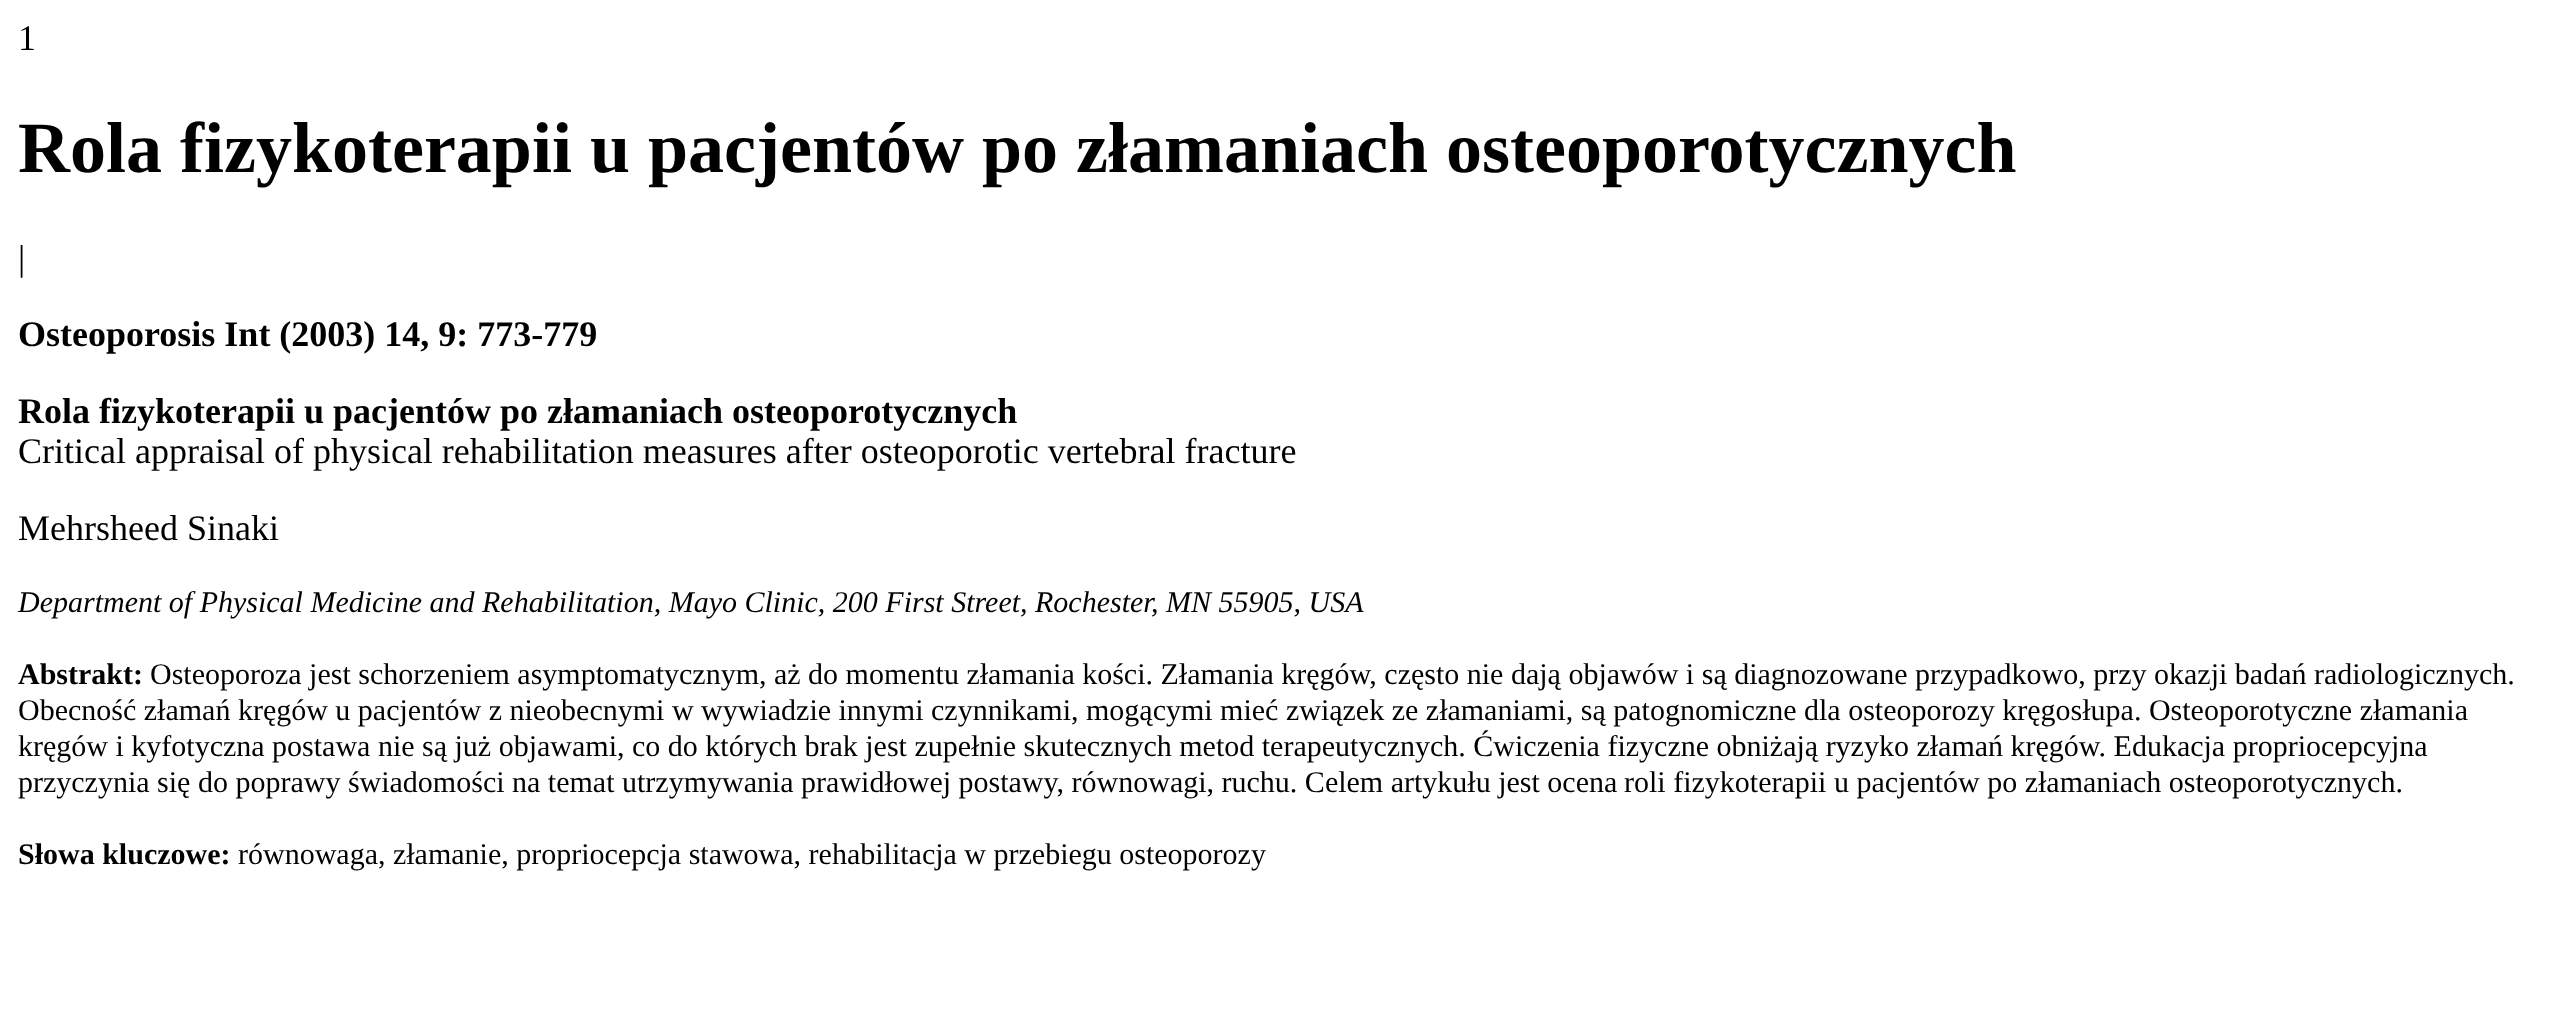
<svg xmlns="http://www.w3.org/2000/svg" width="2569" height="1022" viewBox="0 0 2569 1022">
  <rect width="100%" height="100%" fill="#ffffff"/>
  <text x="18" y="50" font-family="Liberation Serif" font-size="36" fill="#000000">1</text>
  <text x="18" y="172" font-family="Liberation Serif" font-size="72" font-weight="bold" fill="#000000">Rola fizykoterapii u pacjentów po złamaniach osteoporotycznych</text>
  <text x="18" y="270" font-family="Liberation Serif" font-size="36" fill="#000000">|</text>
  <text x="18" y="346" font-family="Liberation Serif" font-size="36" font-weight="bold" fill="#000000">Osteoporosis Int (2003) 14, 9: 773-779</text>
  <text x="18" y="423" font-family="Liberation Serif" font-size="36" font-weight="bold" fill="#000000">Rola fizykoterapii u pacjentów po złamaniach osteoporotycznych</text>
  <text x="18" y="463" font-family="Liberation Serif" font-size="36" fill="#000000">Critical appraisal of physical rehabilitation measures after osteoporotic vertebral fracture</text>
  <text x="18" y="540" font-family="Liberation Serif" font-size="36" fill="#000000">Mehrsheed Sinaki</text>
  <text x="18" y="612" font-family="Liberation Serif" font-size="30" font-style="italic" fill="#000000">Department of Physical Medicine and Rehabilitation, Mayo Clinic, 200 First Street, Rochester</text>
  <text x="1151" y="612" font-family="Liberation Serif" font-size="30" font-style="italic" fill="#000000">, MN 55905, USA</text>
  <text x="18" y="684" font-family="Liberation Serif" font-size="30" font-weight="bold" fill="#000000">Abstrakt:</text>
  <text x="150" y="684" font-family="Liberation Serif" font-size="30" fill="#000000">Osteoporoza jest schorzeniem asymptomatycznym, aż do momentu złamania kości. Złamania kręgów, często nie dają objawów i są diagnozowane przypadkowo, przy okazji badań radiologicznych.</text>
  <text x="18" y="720" font-family="Liberation Serif" font-size="30" fill="#000000">Obecność złamań kręgów u pacjentów z nieobecnymi w wywiadzie innymi czynnikami, mogącymi mieć związek ze złamaniami, są patognomiczne dla osteoporozy kręgosłupa. Osteoporotyczne złamania</text>
  <text x="18" y="756" font-family="Liberation Serif" font-size="30" fill="#000000">kręgów i kyfotyczna postawa nie są już objawami, co do których brak jest zupełnie skutecznych metod terapeutycznych. Ćwiczenia fizyczne obniżają ryzyko złamań kręgów. Edukacja propriocepcyjna</text>
  <text x="18" y="792" font-family="Liberation Serif" font-size="30" fill="#000000">przyczynia się do poprawy świadomości na temat utrzymywania prawidłowej postawy, równowagi, ruchu. Celem artykułu jest ocena</text>
  <text x="1624" y="792" font-family="Liberation Serif" font-size="30" fill="#000000">roli fizykoterapii u pacjentów po złamaniach osteoporotycznych.</text>
  <text x="18" y="864" font-family="Liberation Serif" font-size="30" font-weight="bold" fill="#000000">Słowa kluczowe:</text>
  <text x="238" y="864" font-family="Liberation Serif" font-size="30" fill="#000000">równowaga, złamanie, propriocepcja stawowa, rehabilitacja w przebiegu osteoporozy</text>
</svg>
